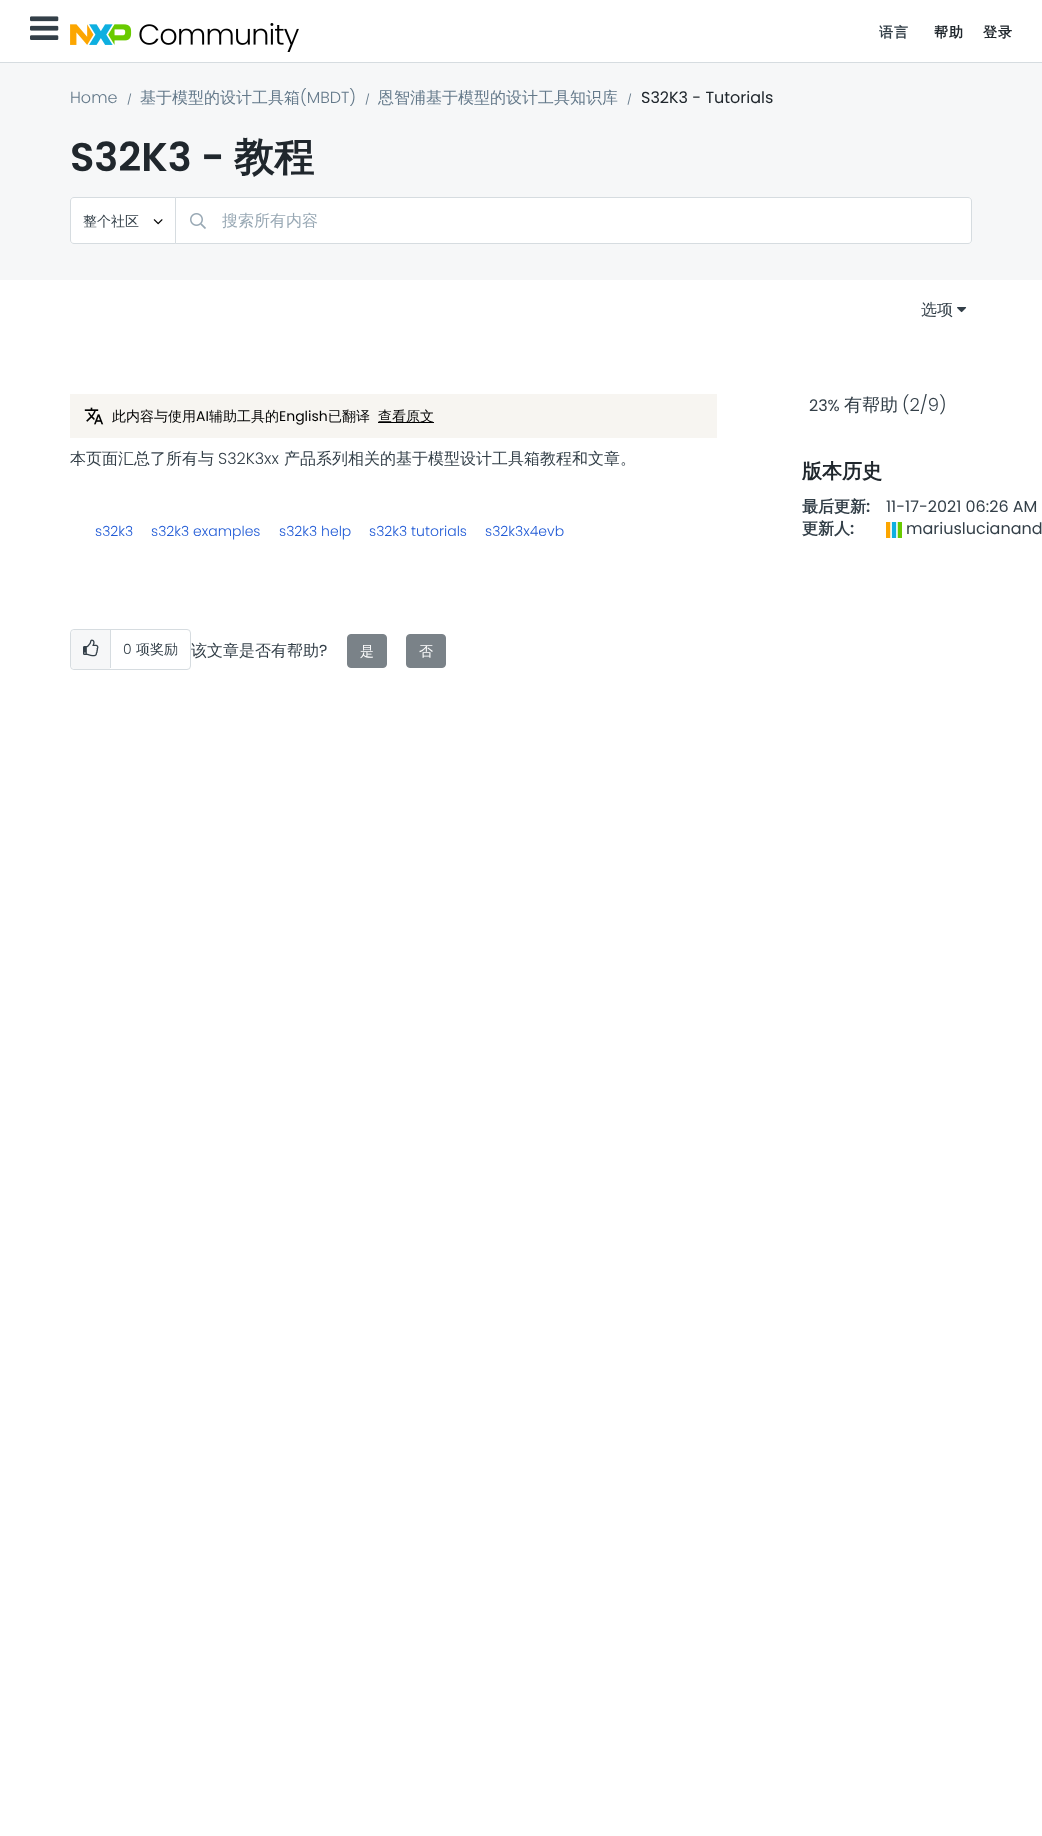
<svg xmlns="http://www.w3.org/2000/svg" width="1042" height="1836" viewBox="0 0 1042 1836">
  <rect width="100%" height="100%" fill="#ffffff"/>
  <rect x="0" y="62" width="1042" height="1" fill="#d6dce0"/>
  <image x="30" y="16" width="29" height="24" href="img1.png"/>
  <image x="70" y="23" width="229" height="29" href="img2.png"/>
  <text x="879" y="37" font-family="WenQuanYi Zen Hei" font-size="14" font-weight="bold" letter-spacing="1" fill="#333f48">语言</text>
  <text x="934" y="37" font-family="WenQuanYi Zen Hei" font-size="14" font-weight="bold" letter-spacing="1" fill="#20272d">帮助</text>
  <text x="983" y="37" font-family="WenQuanYi Zen Hei" font-size="14" font-weight="bold" letter-spacing="1" fill="#20272d">登录</text>
  <rect x="0" y="63" width="1042" height="217" fill="#f6f7f8"/>
  <text x="70" y="103" font-family="Poppins" font-size="16" font-weight="300" fill="#64798a">Home</text>
  <text x="127" y="103" font-family="Poppins" font-size="10" fill="#64798a">/</text>
  <text x="140" y="103" font-family="WenQuanYi Zen Hei" font-size="16" font-weight="500" fill="#64798a">基于模型的设计工具箱</text>
  <text x="300" y="103" font-family="Poppins" font-size="16" font-weight="300" fill="#64798a">(MBDT)</text>
  <text x="365" y="103" font-family="Poppins" font-size="10" fill="#64798a">/</text>
  <text x="378" y="103" font-family="WenQuanYi Zen Hei" font-size="16" font-weight="500" fill="#64798a">恩智浦基于模型的设计工具知识库</text>
  <text x="627" y="103" font-family="Poppins" font-size="10" fill="#64798a">/</text>
  <text x="641" y="103" font-family="Poppins" font-size="16" fill="#20272d">S32K3 - Tutorials</text>
  <text x="70" y="171" font-family="Poppins" font-size="40" font-weight="600" fill="#20272d">S32K3 -</text>
  <text x="234" y="171" font-family="WenQuanYi Zen Hei" font-size="40" font-weight="bold" fill="#20272d">教程</text>
  <path d="M175.5 197.5H968C970 197.5 971.5 199 971.5 201V240C971.5 242 970 243.5 968 243.5H175.5Z" fill="#ffffff" stroke="#d6dce0"/>
  <path d="M74 197.5H175.5V243.5H74C72 243.5 70.5 242 70.5 240V201C70.5 199 72 197.5 74 197.5Z" fill="#ffffff" stroke="#d6dce0"/>
  <text x="83" y="226" font-family="WenQuanYi Zen Hei" font-size="14" font-weight="500" fill="#333f48">整个社区</text>
  <image x="153" y="219" width="10" height="6" href="img3.png"/>
  <image x="190" y="213" width="16" height="16" href="img4.png"/>
  <text x="222" y="226" font-family="WenQuanYi Zen Hei" font-size="16" font-weight="500" fill="#98a8b4">搜索所有内容</text>
  <text x="921" y="315" font-family="WenQuanYi Zen Hei" font-size="16" font-weight="500" fill="#333f48">选项</text>
  <image x="957" y="307" width="10" height="6" href="img5.png"/>
  <rect x="70" y="394" width="647" height="44" fill="#f7f5f1"/>
  <image x="84" y="407" width="20" height="18" href="img6.png"/>
  <text x="112" y="421" font-family="WenQuanYi Zen Hei" font-size="14" font-weight="500" fill="#000000">此内容与使用</text>
  <text x="196" y="421" font-family="Poppins" font-size="14" fill="#000000">AI</text>
  <text x="209" y="421" font-family="WenQuanYi Zen Hei" font-size="14" font-weight="500" fill="#000000">辅助工具的</text>
  <text x="279" y="421" font-family="Poppins" font-size="14" fill="#000000">English</text>
  <text x="328" y="421" font-family="WenQuanYi Zen Hei" font-size="14" font-weight="500" fill="#000000">已翻译</text>
  <rect x="378" y="422" width="56" height="1" fill="#000000"/>
  <text x="378" y="421" font-family="WenQuanYi Zen Hei" font-size="14" font-weight="500" fill="#000000">查看原文</text>
  <text x="70" y="464" font-family="WenQuanYi Zen Hei" font-size="16" font-weight="500" fill="#333f48">本页面汇总了所有与</text>
  <text x="218" y="464" font-family="Poppins" font-size="16" font-weight="300" fill="#333f48">S32K3xx</text>
  <text x="284" y="464" font-family="WenQuanYi Zen Hei" font-size="16" font-weight="500" fill="#333f48">产品系列相关的基于模型设计工具箱教程和文章。</text>
  <text x="95" y="536" font-family="Poppins" font-size="14" font-weight="300" fill="#215bd6">s32k3</text>
  <text x="151" y="536" font-family="Poppins" font-size="14" font-weight="300" fill="#215bd6">s32k3 examples</text>
  <text x="279" y="536" font-family="Poppins" font-size="14" font-weight="300" fill="#215bd6">s32k3 help</text>
  <text x="369" y="536" font-family="Poppins" font-size="14" font-weight="300" fill="#215bd6">s32k3 tutorials</text>
  <text x="485" y="536" font-family="Poppins" font-size="14" font-weight="300" fill="#215bd6">s32k3x4evb</text>
  <rect x="70.5" y="629.5" width="120" height="40" rx="3.5" fill="none" stroke="#d6dce0"/>
  <path d="M75 630H110V669H75C73 669 71 667 71 665V634C71 632 73 630 75 630Z" fill="#f6f7f8"/>
  <image x="83" y="639" width="16" height="18" href="img7.png"/>
  <rect x="110" y="630" width="1" height="38" fill="#d6dce0"/>
  <text x="123" y="654" font-family="Poppins" font-size="14" font-weight="300" fill="#333f48">0</text>
  <text x="136" y="654" font-family="WenQuanYi Zen Hei" font-size="14" font-weight="500" fill="#333f48">项奖励</text>
  <text x="191" y="656" font-family="WenQuanYi Zen Hei" font-size="16" font-weight="500" fill="#333f48">该文章是否有帮助</text>
  <text x="319" y="656" font-family="Poppins" font-size="16" fill="#333f48">?</text>
  <rect x="347.5" y="634.5" width="39" height="33" rx="3.5" fill="#7a8288" stroke="#7a8288"/>
  <text x="360" y="656" font-family="WenQuanYi Zen Hei" font-size="14" font-weight="500" fill="#ffffff">是</text>
  <rect x="406.5" y="634.5" width="39" height="33" rx="3.5" fill="#7a8288" stroke="#7a8288"/>
  <text x="419" y="656" font-family="WenQuanYi Zen Hei" font-size="14" font-weight="500" fill="#ffffff">否</text>
  <text x="809" y="411" font-family="Poppins" font-size="16" fill="#333f48">23%</text>
  <text x="844" y="411" font-family="WenQuanYi Zen Hei" font-size="18" font-weight="500" fill="#333f48">有帮助</text>
  <text x="902" y="411" font-family="Poppins" font-size="18" font-weight="300" fill="#333f48">(2/9)</text>
  <text x="802" y="478" font-family="WenQuanYi Zen Hei" font-size="20" font-weight="bold" fill="#20272d">版本历史</text>
  <text x="802" y="512" font-family="WenQuanYi Zen Hei" font-size="16" font-weight="bold" fill="#333f48">最后更新</text>
  <text x="866" y="512" font-family="Poppins" font-size="16" font-weight="600" fill="#333f48">:</text>
  <text x="886" y="512" font-family="Poppins" font-size="16" fill="#333f48">11-17-2021 06:26 AM</text>
  <text x="802" y="534" font-family="WenQuanYi Zen Hei" font-size="16" font-weight="bold" fill="#333f48">更新人</text>
  <text x="850" y="534" font-family="Poppins" font-size="16" font-weight="600" fill="#333f48">:</text>
  <image x="886" y="522" width="16" height="16" href="img8.png"/>
  <text x="906" y="534" font-family="Poppins" font-size="16" fill="#333f48">mariuslucianand</text>
</svg>
